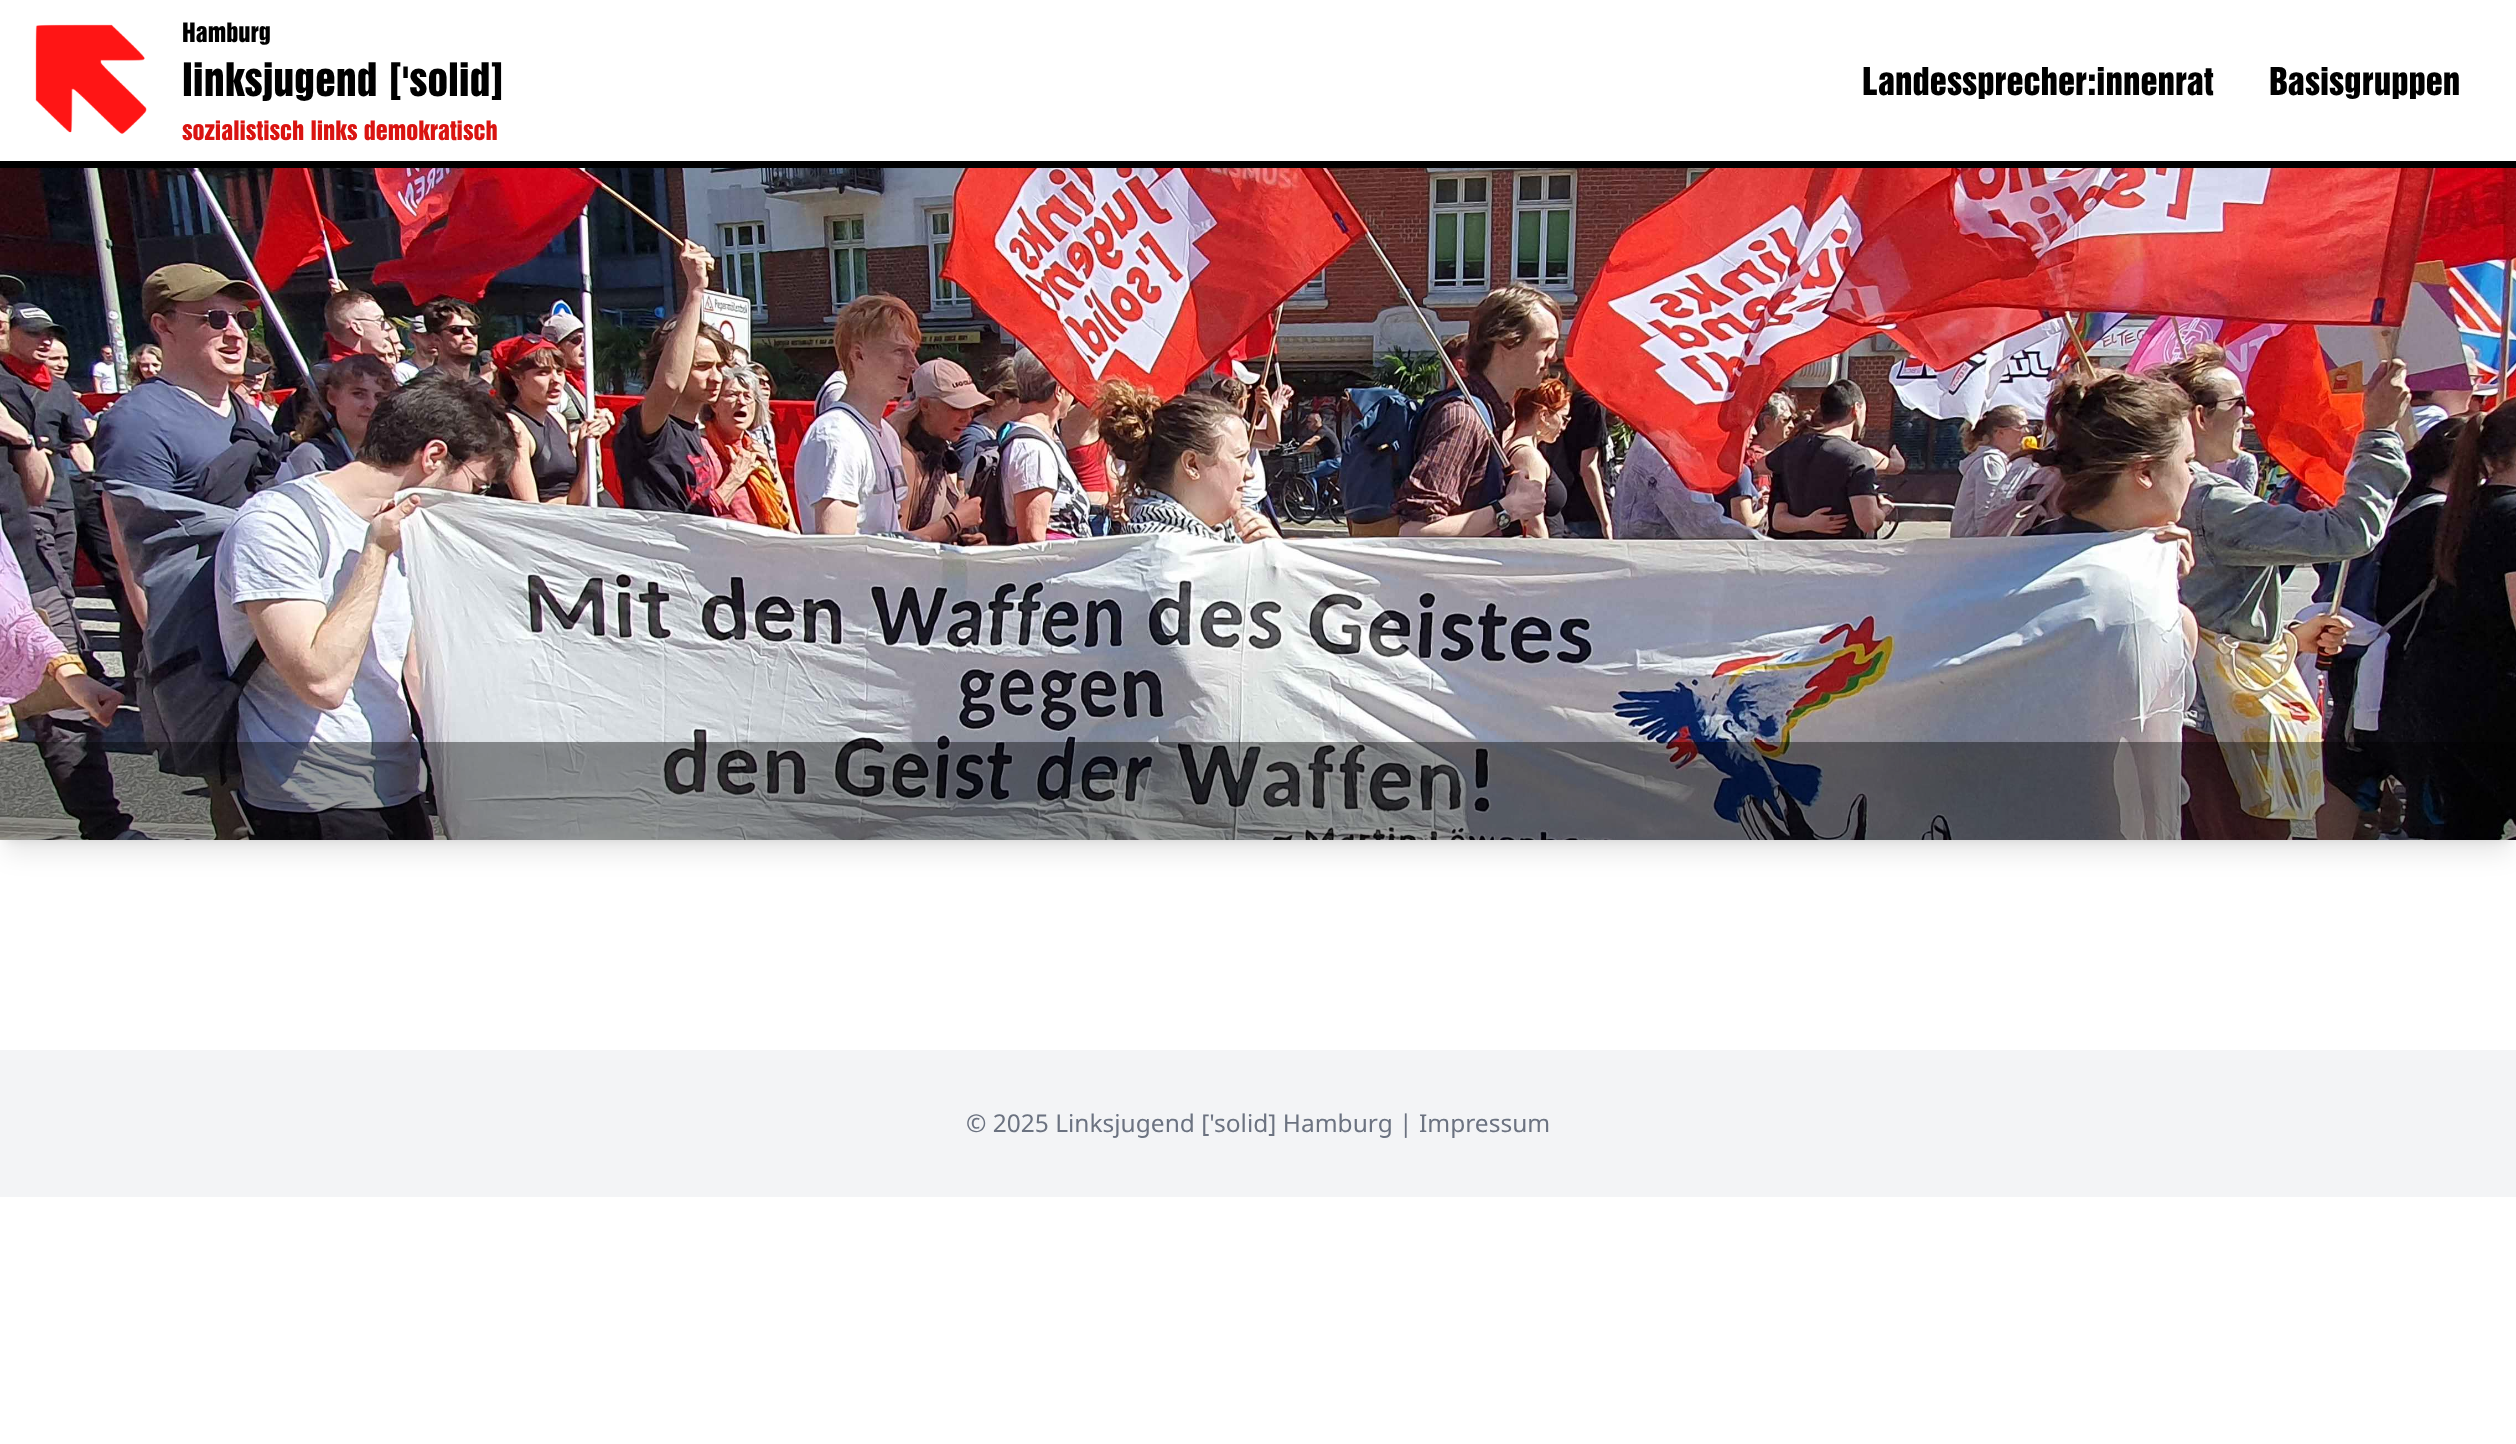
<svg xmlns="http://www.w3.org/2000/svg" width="2516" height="1444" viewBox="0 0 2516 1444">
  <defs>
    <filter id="blur1" x="-50%" y="-200%" width="200%" height="500%"><feGaussianBlur stdDeviation="5"/></filter>
    <filter id="blur2" x="-50%" y="-200%" width="200%" height="500%"><feGaussianBlur stdDeviation="13"/></filter>
  </defs>
  <rect width="100%" height="100%" fill="#ffffff"/>
  <rect x="0" y="161" width="2516" height="7" fill="#000000"/>
  <image x="35" y="24" width="112" height="110" href="img1.png"/>
  <text x="182" y="42" font-family="'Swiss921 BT'" font-size="24.5" fill="#000000">Hamburg</text>
  <text x="182" y="96" font-family="'Swiss921 BT'" font-size="42" fill="#000000">linksjugend ['solid]</text>
  <text x="182" y="140" font-family="'Swiss921 BT'" font-size="24.5" fill="#da1411">sozialistisch links demokratisch</text>
  <text x="1862" y="95" font-family="'Swiss921 BT'" font-size="35" fill="#000000">Landessprecher:innenrat</text>
  <text x="2269" y="95" font-family="'Swiss921 BT'" font-size="35" fill="#000000">Basisgruppen</text>
  <rect x="7" y="182" width="2503" height="658" fill="#000000" fill-opacity="0.1" filter="url(#blur1)"/>
  <rect x="5" y="191" width="2506" height="661" fill="#000000" fill-opacity="0.1" filter="url(#blur2)"/>
  <image x="0" y="168" width="2516" height="672" href="img2.png"/>
  <rect x="0" y="742" width="2516" height="98" fill="#000000" fill-opacity="0.4"/>
  <rect x="0" y="1050" width="2516" height="147" fill="#f3f4f6"/>
  <text x="966" y="1132" font-family="Noto Sans" font-size="24.5" fill="#6b7280">© 2025 Linksjugend ['solid] Hamburg | Impressum</text>
</svg>
